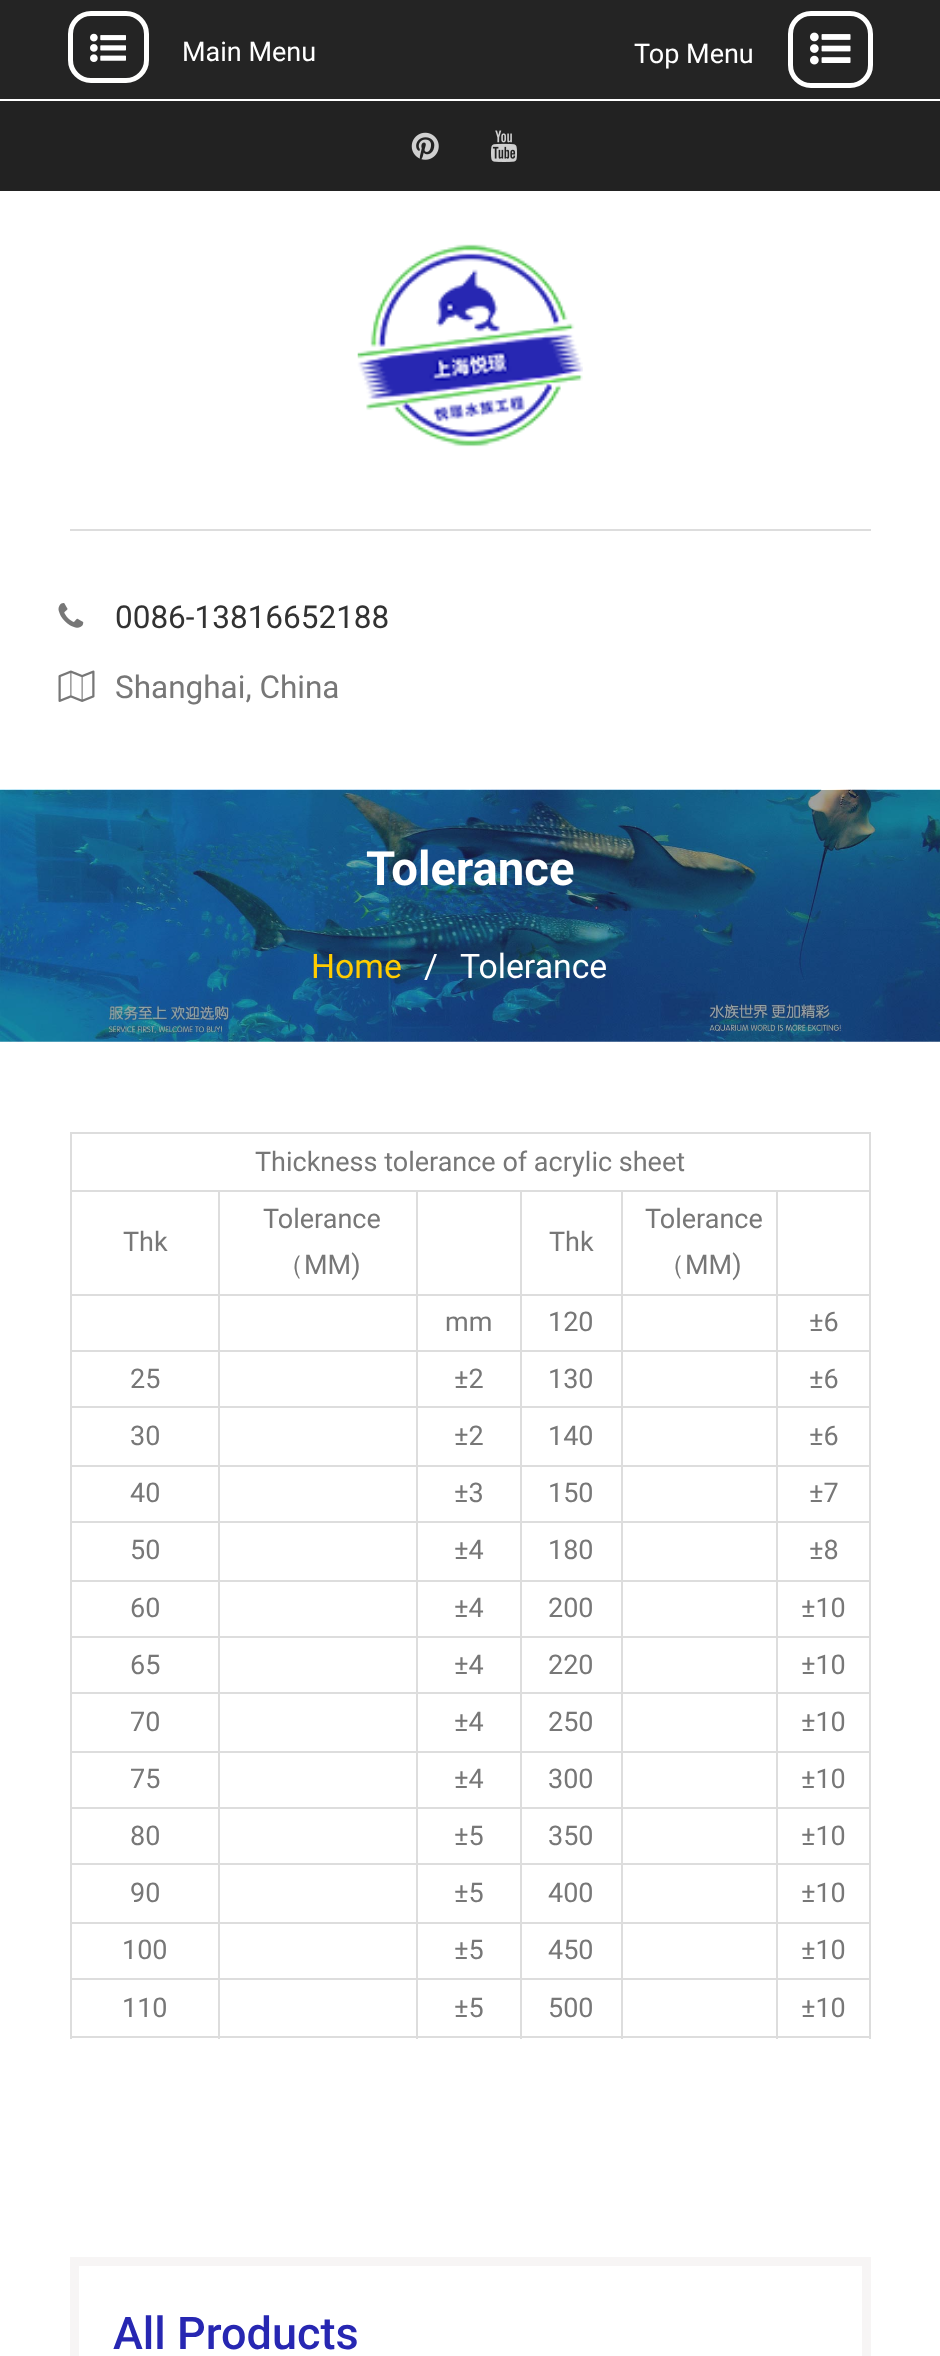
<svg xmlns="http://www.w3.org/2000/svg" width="940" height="2356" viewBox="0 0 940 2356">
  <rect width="100%" height="100%" fill="#ffffff"/>
  <rect x="0" y="0" width="940" height="99" fill="#242424"/>
  <rect x="70.5" y="13.5" width="76" height="67" rx="20.5" fill="none" stroke="#fffffe" stroke-width="5"/>
  <image x="90" y="33" width="36" height="29" href="img1.png"/>
  <text x="182" y="61" font-family="Roboto" font-size="27" fill="#ffffff">Main Menu</text>
  <text x="634" y="63" font-family="Roboto" font-size="27" fill="#ffffff">Top Menu</text>
  <rect x="790.5" y="13.5" width="80" height="72" rx="20.5" fill="none" stroke="#ffffff" stroke-width="5"/>
  <image x="810" y="32" width="41" height="33" href="img2.png"/>
  <rect x="0" y="101" width="940" height="90" fill="#222222"/>
  <image x="411" y="132" width="28" height="28" href="img3.png"/>
  <image x="491" y="130" width="26" height="32" href="img4.png"/>
  <image x="357" y="244" width="226" height="203" href="img5.png"/>
  <rect x="70" y="529" width="801" height="2" fill="#dddddd"/>
  <image x="58" y="603" width="26" height="25" href="img6.png"/>
  <text x="115" y="628" font-family="Roboto" font-size="31.5" fill="#323232">0086-13816652188</text>
  <image x="58" y="670" width="37" height="32" href="img7.png"/>
  <text x="115" y="698" font-family="Roboto" font-size="31.5" fill="#777777">Shanghai, China</text>
  <image x="0" y="789" width="940" height="253" href="img8.png"/>
  <text x="366" y="885" font-family="Roboto" font-size="47.25" font-weight="bold" fill="#ffffff">Tolerance</text>
  <text x="311" y="978" font-family="Roboto" font-size="33.75" fill="#ffcc00">Home</text>
  <text x="424" y="978" font-family="Roboto" font-size="33.75" fill="#ffffff">/</text>
  <text x="460" y="978" font-family="Roboto" font-size="33.75" fill="#ffffff">Tolerance</text>
  <rect x="70" y="1132" width="801" height="2" fill="#dddddd"/>
  <rect x="776" y="1190" width="95" height="2" fill="#dddddd"/>
  <rect x="776" y="1294" width="95" height="2" fill="#dddddd"/>
  <rect x="776" y="1350" width="95" height="2" fill="#dddddd"/>
  <rect x="776" y="1406" width="95" height="2" fill="#dddddd"/>
  <rect x="776" y="1465" width="95" height="2" fill="#dddddd"/>
  <rect x="776" y="1521" width="95" height="2" fill="#dddddd"/>
  <rect x="776" y="1580" width="95" height="2" fill="#dddddd"/>
  <rect x="776" y="1636" width="95" height="2" fill="#dddddd"/>
  <rect x="776" y="1692" width="95" height="2" fill="#dddddd"/>
  <rect x="776" y="1751" width="95" height="2" fill="#dddddd"/>
  <rect x="776" y="1807" width="95" height="2" fill="#dddddd"/>
  <rect x="776" y="1863" width="95" height="2" fill="#dddddd"/>
  <rect x="776" y="1922" width="95" height="2" fill="#dddddd"/>
  <rect x="776" y="1978" width="95" height="2" fill="#dddddd"/>
  <rect x="869" y="1978" width="2" height="61" fill="#dddddd"/>
  <rect x="869" y="1922" width="2" height="58" fill="#dddddd"/>
  <rect x="869" y="1863" width="2" height="61" fill="#dddddd"/>
  <rect x="869" y="1807" width="2" height="58" fill="#dddddd"/>
  <rect x="869" y="1751" width="2" height="58" fill="#dddddd"/>
  <rect x="869" y="1692" width="2" height="61" fill="#dddddd"/>
  <rect x="869" y="1636" width="2" height="58" fill="#dddddd"/>
  <rect x="869" y="1580" width="2" height="58" fill="#dddddd"/>
  <rect x="869" y="1521" width="2" height="61" fill="#dddddd"/>
  <rect x="869" y="1465" width="2" height="58" fill="#dddddd"/>
  <rect x="869" y="1406" width="2" height="61" fill="#dddddd"/>
  <rect x="869" y="1350" width="2" height="59" fill="#dddddd"/>
  <rect x="869" y="1294" width="2" height="58" fill="#dddddd"/>
  <rect x="869" y="1190" width="2" height="106" fill="#dddddd"/>
  <rect x="869" y="1132" width="2" height="61" fill="#dddddd"/>
  <rect x="776" y="2036" width="95" height="2" fill="#dddddd"/>
  <rect x="776" y="1978" width="2" height="61" fill="#dddddd"/>
  <rect x="621" y="1978" width="158" height="2" fill="#dddddd"/>
  <rect x="776" y="1922" width="2" height="58" fill="#dddddd"/>
  <rect x="621" y="1922" width="158" height="2" fill="#dddddd"/>
  <rect x="776" y="1863" width="2" height="61" fill="#dddddd"/>
  <rect x="621" y="1863" width="158" height="2" fill="#dddddd"/>
  <rect x="776" y="1807" width="2" height="58" fill="#dddddd"/>
  <rect x="621" y="1807" width="158" height="2" fill="#dddddd"/>
  <rect x="776" y="1751" width="2" height="58" fill="#dddddd"/>
  <rect x="621" y="1751" width="158" height="2" fill="#dddddd"/>
  <rect x="776" y="1692" width="2" height="61" fill="#dddddd"/>
  <rect x="621" y="1692" width="158" height="2" fill="#dddddd"/>
  <rect x="776" y="1636" width="2" height="58" fill="#dddddd"/>
  <rect x="621" y="1636" width="158" height="2" fill="#dddddd"/>
  <rect x="776" y="1580" width="2" height="58" fill="#dddddd"/>
  <rect x="621" y="1580" width="158" height="2" fill="#dddddd"/>
  <rect x="776" y="1521" width="2" height="61" fill="#dddddd"/>
  <rect x="621" y="1521" width="158" height="2" fill="#dddddd"/>
  <rect x="776" y="1465" width="2" height="58" fill="#dddddd"/>
  <rect x="621" y="1465" width="158" height="2" fill="#dddddd"/>
  <rect x="776" y="1406" width="2" height="61" fill="#dddddd"/>
  <rect x="621" y="1406" width="158" height="2" fill="#dddddd"/>
  <rect x="776" y="1350" width="2" height="59" fill="#dddddd"/>
  <rect x="621" y="1350" width="158" height="2" fill="#dddddd"/>
  <rect x="776" y="1294" width="2" height="58" fill="#dddddd"/>
  <rect x="621" y="1294" width="158" height="2" fill="#dddddd"/>
  <rect x="776" y="1190" width="2" height="106" fill="#dddddd"/>
  <rect x="621" y="1190" width="158" height="2" fill="#dddddd"/>
  <rect x="621" y="2036" width="158" height="2" fill="#dddddd"/>
  <rect x="621" y="1978" width="2" height="61" fill="#dddddd"/>
  <rect x="520" y="1978" width="103" height="2" fill="#dddddd"/>
  <rect x="621" y="1922" width="2" height="58" fill="#dddddd"/>
  <rect x="520" y="1922" width="103" height="2" fill="#dddddd"/>
  <rect x="621" y="1863" width="2" height="61" fill="#dddddd"/>
  <rect x="520" y="1863" width="103" height="2" fill="#dddddd"/>
  <rect x="621" y="1807" width="2" height="58" fill="#dddddd"/>
  <rect x="520" y="1807" width="103" height="2" fill="#dddddd"/>
  <rect x="621" y="1751" width="2" height="58" fill="#dddddd"/>
  <rect x="520" y="1751" width="103" height="2" fill="#dddddd"/>
  <rect x="621" y="1692" width="2" height="61" fill="#dddddd"/>
  <rect x="520" y="1692" width="103" height="2" fill="#dddddd"/>
  <rect x="621" y="1636" width="2" height="58" fill="#dddddd"/>
  <rect x="520" y="1636" width="103" height="2" fill="#dddddd"/>
  <rect x="621" y="1580" width="2" height="58" fill="#dddddd"/>
  <rect x="520" y="1580" width="103" height="2" fill="#dddddd"/>
  <rect x="621" y="1521" width="2" height="61" fill="#dddddd"/>
  <rect x="520" y="1521" width="103" height="2" fill="#dddddd"/>
  <rect x="621" y="1465" width="2" height="58" fill="#dddddd"/>
  <rect x="520" y="1465" width="103" height="2" fill="#dddddd"/>
  <rect x="621" y="1406" width="2" height="61" fill="#dddddd"/>
  <rect x="520" y="1406" width="103" height="2" fill="#dddddd"/>
  <rect x="621" y="1350" width="2" height="59" fill="#dddddd"/>
  <rect x="520" y="1350" width="103" height="2" fill="#dddddd"/>
  <rect x="621" y="1294" width="2" height="58" fill="#dddddd"/>
  <rect x="520" y="1294" width="103" height="2" fill="#dddddd"/>
  <rect x="621" y="1190" width="2" height="106" fill="#dddddd"/>
  <rect x="520" y="1190" width="103" height="2" fill="#dddddd"/>
  <rect x="520" y="2036" width="103" height="2" fill="#dddddd"/>
  <rect x="520" y="1978" width="2" height="61" fill="#dddddd"/>
  <rect x="416" y="1978" width="106" height="2" fill="#dddddd"/>
  <rect x="520" y="1922" width="2" height="58" fill="#dddddd"/>
  <rect x="416" y="1922" width="106" height="2" fill="#dddddd"/>
  <rect x="520" y="1863" width="2" height="61" fill="#dddddd"/>
  <rect x="416" y="1863" width="106" height="2" fill="#dddddd"/>
  <rect x="520" y="1807" width="2" height="58" fill="#dddddd"/>
  <rect x="416" y="1807" width="106" height="2" fill="#dddddd"/>
  <rect x="520" y="1751" width="2" height="58" fill="#dddddd"/>
  <rect x="416" y="1751" width="106" height="2" fill="#dddddd"/>
  <rect x="520" y="1692" width="2" height="61" fill="#dddddd"/>
  <rect x="416" y="1692" width="106" height="2" fill="#dddddd"/>
  <rect x="520" y="1636" width="2" height="58" fill="#dddddd"/>
  <rect x="416" y="1636" width="106" height="2" fill="#dddddd"/>
  <rect x="520" y="1580" width="2" height="58" fill="#dddddd"/>
  <rect x="416" y="1580" width="106" height="2" fill="#dddddd"/>
  <rect x="520" y="1521" width="2" height="61" fill="#dddddd"/>
  <rect x="416" y="1521" width="106" height="2" fill="#dddddd"/>
  <rect x="520" y="1465" width="2" height="58" fill="#dddddd"/>
  <rect x="416" y="1465" width="106" height="2" fill="#dddddd"/>
  <rect x="520" y="1406" width="2" height="61" fill="#dddddd"/>
  <rect x="416" y="1406" width="106" height="2" fill="#dddddd"/>
  <rect x="520" y="1350" width="2" height="59" fill="#dddddd"/>
  <rect x="416" y="1350" width="106" height="2" fill="#dddddd"/>
  <rect x="520" y="1294" width="2" height="58" fill="#dddddd"/>
  <rect x="416" y="1294" width="106" height="2" fill="#dddddd"/>
  <rect x="520" y="1190" width="2" height="106" fill="#dddddd"/>
  <rect x="416" y="1190" width="106" height="2" fill="#dddddd"/>
  <rect x="416" y="2036" width="106" height="2" fill="#dddddd"/>
  <rect x="416" y="1978" width="2" height="61" fill="#dddddd"/>
  <rect x="218" y="1978" width="201" height="2" fill="#dddddd"/>
  <rect x="416" y="1922" width="2" height="58" fill="#dddddd"/>
  <rect x="218" y="1922" width="201" height="2" fill="#dddddd"/>
  <rect x="416" y="1863" width="2" height="61" fill="#dddddd"/>
  <rect x="218" y="1863" width="201" height="2" fill="#dddddd"/>
  <rect x="416" y="1807" width="2" height="58" fill="#dddddd"/>
  <rect x="218" y="1807" width="201" height="2" fill="#dddddd"/>
  <rect x="416" y="1751" width="2" height="58" fill="#dddddd"/>
  <rect x="218" y="1751" width="201" height="2" fill="#dddddd"/>
  <rect x="416" y="1692" width="2" height="61" fill="#dddddd"/>
  <rect x="218" y="1692" width="201" height="2" fill="#dddddd"/>
  <rect x="416" y="1636" width="2" height="58" fill="#dddddd"/>
  <rect x="218" y="1636" width="201" height="2" fill="#dddddd"/>
  <rect x="416" y="1580" width="2" height="58" fill="#dddddd"/>
  <rect x="218" y="1580" width="201" height="2" fill="#dddddd"/>
  <rect x="416" y="1521" width="2" height="61" fill="#dddddd"/>
  <rect x="218" y="1521" width="201" height="2" fill="#dddddd"/>
  <rect x="416" y="1465" width="2" height="58" fill="#dddddd"/>
  <rect x="218" y="1465" width="201" height="2" fill="#dddddd"/>
  <rect x="416" y="1406" width="2" height="61" fill="#dddddd"/>
  <rect x="218" y="1406" width="201" height="2" fill="#dddddd"/>
  <rect x="416" y="1350" width="2" height="59" fill="#dddddd"/>
  <rect x="218" y="1350" width="201" height="2" fill="#dddddd"/>
  <rect x="416" y="1294" width="2" height="58" fill="#dddddd"/>
  <rect x="218" y="1294" width="201" height="2" fill="#dddddd"/>
  <rect x="416" y="1190" width="2" height="106" fill="#dddddd"/>
  <rect x="218" y="1190" width="201" height="2" fill="#dddddd"/>
  <rect x="218" y="2036" width="201" height="2" fill="#dddddd"/>
  <rect x="218" y="1978" width="2" height="61" fill="#dddddd"/>
  <rect x="70" y="1978" width="151" height="2" fill="#dddddd"/>
  <rect x="218" y="1922" width="2" height="58" fill="#dddddd"/>
  <rect x="70" y="1922" width="151" height="2" fill="#dddddd"/>
  <rect x="218" y="1863" width="2" height="61" fill="#dddddd"/>
  <rect x="70" y="1863" width="151" height="2" fill="#dddddd"/>
  <rect x="218" y="1807" width="2" height="58" fill="#dddddd"/>
  <rect x="70" y="1807" width="151" height="2" fill="#dddddd"/>
  <rect x="218" y="1751" width="2" height="58" fill="#dddddd"/>
  <rect x="70" y="1751" width="151" height="2" fill="#dddddd"/>
  <rect x="218" y="1692" width="2" height="61" fill="#dddddd"/>
  <rect x="70" y="1692" width="151" height="2" fill="#dddddd"/>
  <rect x="218" y="1636" width="2" height="58" fill="#dddddd"/>
  <rect x="70" y="1636" width="151" height="2" fill="#dddddd"/>
  <rect x="218" y="1580" width="2" height="58" fill="#dddddd"/>
  <rect x="70" y="1580" width="151" height="2" fill="#dddddd"/>
  <rect x="218" y="1521" width="2" height="61" fill="#dddddd"/>
  <rect x="70" y="1521" width="151" height="2" fill="#dddddd"/>
  <rect x="218" y="1465" width="2" height="58" fill="#dddddd"/>
  <rect x="70" y="1465" width="151" height="2" fill="#dddddd"/>
  <rect x="218" y="1406" width="2" height="61" fill="#dddddd"/>
  <rect x="70" y="1406" width="151" height="2" fill="#dddddd"/>
  <rect x="218" y="1350" width="2" height="59" fill="#dddddd"/>
  <rect x="70" y="1350" width="151" height="2" fill="#dddddd"/>
  <rect x="218" y="1294" width="2" height="58" fill="#dddddd"/>
  <rect x="70" y="1294" width="151" height="2" fill="#dddddd"/>
  <rect x="218" y="1190" width="2" height="106" fill="#dddddd"/>
  <rect x="70" y="1190" width="151" height="2" fill="#dddddd"/>
  <rect x="70" y="2036" width="151" height="2" fill="#dddddd"/>
  <rect x="70" y="1978" width="2" height="61" fill="#dddddd"/>
  <rect x="70" y="1922" width="2" height="58" fill="#dddddd"/>
  <rect x="70" y="1863" width="2" height="61" fill="#dddddd"/>
  <rect x="70" y="1807" width="2" height="58" fill="#dddddd"/>
  <rect x="70" y="1751" width="2" height="58" fill="#dddddd"/>
  <rect x="70" y="1692" width="2" height="61" fill="#dddddd"/>
  <rect x="70" y="1636" width="2" height="58" fill="#dddddd"/>
  <rect x="70" y="1580" width="2" height="58" fill="#dddddd"/>
  <rect x="70" y="1521" width="2" height="61" fill="#dddddd"/>
  <rect x="70" y="1465" width="2" height="58" fill="#dddddd"/>
  <rect x="70" y="1406" width="2" height="61" fill="#dddddd"/>
  <rect x="70" y="1350" width="2" height="59" fill="#dddddd"/>
  <rect x="70" y="1294" width="2" height="58" fill="#dddddd"/>
  <rect x="70" y="1190" width="2" height="106" fill="#dddddd"/>
  <rect x="70" y="1132" width="2" height="61" fill="#dddddd"/>
  <text x="255" y="1171" font-family="Roboto" font-size="27" fill="#777777">Thickness tolerance of acrylic sheet</text>
  <text x="123" y="1251" font-family="Roboto" font-size="27" fill="#777777">Thk</text>
  <text x="263" y="1228" font-family="Roboto" font-size="27" fill="#777777">Tolerance</text>
  <text x="277" y="1274" font-family="WenQuanYi Zen Hei" font-size="27" font-weight="500" fill="#777777">（</text>
  <text x="304" y="1274" font-family="Roboto" font-size="27" fill="#777777">MM)</text>
  <text x="549" y="1251" font-family="Roboto" font-size="27" fill="#777777">Thk</text>
  <text x="645" y="1228" font-family="Roboto" font-size="27" fill="#777777">Tolerance</text>
  <text x="658" y="1274" font-family="WenQuanYi Zen Hei" font-size="27" font-weight="500" fill="#777777">（</text>
  <text x="685" y="1274" font-family="Roboto" font-size="27" fill="#777777">MM)</text>
  <text x="445" y="1331" font-family="Roboto" font-size="27" fill="#777777">mm</text>
  <text x="548" y="1331" font-family="Roboto" font-size="27" fill="#777777">120</text>
  <text x="809" y="1331" font-family="Roboto" font-size="27" fill="#777777">±6</text>
  <text x="130" y="1388" font-family="Roboto" font-size="27" fill="#777777">25</text>
  <text x="454" y="1388" font-family="Roboto" font-size="27" fill="#777777">±2</text>
  <text x="548" y="1388" font-family="Roboto" font-size="27" fill="#777777">130</text>
  <text x="809" y="1388" font-family="Roboto" font-size="27" fill="#777777">±6</text>
  <text x="130" y="1445" font-family="Roboto" font-size="27" fill="#777777">30</text>
  <text x="454" y="1445" font-family="Roboto" font-size="27" fill="#777777">±2</text>
  <text x="548" y="1445" font-family="Roboto" font-size="27" fill="#777777">140</text>
  <text x="809" y="1445" font-family="Roboto" font-size="27" fill="#777777">±6</text>
  <text x="130" y="1502" font-family="Roboto" font-size="27" fill="#777777">40</text>
  <text x="454" y="1502" font-family="Roboto" font-size="27" fill="#777777">±3</text>
  <text x="548" y="1502" font-family="Roboto" font-size="27" fill="#777777">150</text>
  <text x="809" y="1502" font-family="Roboto" font-size="27" fill="#777777">±7</text>
  <text x="130" y="1559" font-family="Roboto" font-size="27" fill="#777777">50</text>
  <text x="454" y="1559" font-family="Roboto" font-size="27" fill="#777777">±4</text>
  <text x="548" y="1559" font-family="Roboto" font-size="27" fill="#777777">180</text>
  <text x="809" y="1559" font-family="Roboto" font-size="27" fill="#777777">±8</text>
  <text x="130" y="1617" font-family="Roboto" font-size="27" fill="#777777">60</text>
  <text x="454" y="1617" font-family="Roboto" font-size="27" fill="#777777">±4</text>
  <text x="548" y="1617" font-family="Roboto" font-size="27" fill="#777777">200</text>
  <text x="801" y="1617" font-family="Roboto" font-size="27" fill="#777777">±10</text>
  <text x="130" y="1674" font-family="Roboto" font-size="27" fill="#777777">65</text>
  <text x="454" y="1674" font-family="Roboto" font-size="27" fill="#777777">±4</text>
  <text x="548" y="1674" font-family="Roboto" font-size="27" fill="#777777">220</text>
  <text x="801" y="1674" font-family="Roboto" font-size="27" fill="#777777">±10</text>
  <text x="130" y="1731" font-family="Roboto" font-size="27" fill="#777777">70</text>
  <text x="454" y="1731" font-family="Roboto" font-size="27" fill="#777777">±4</text>
  <text x="548" y="1731" font-family="Roboto" font-size="27" fill="#777777">250</text>
  <text x="801" y="1731" font-family="Roboto" font-size="27" fill="#777777">±10</text>
  <text x="130" y="1788" font-family="Roboto" font-size="27" fill="#777777">75</text>
  <text x="454" y="1788" font-family="Roboto" font-size="27" fill="#777777">±4</text>
  <text x="548" y="1788" font-family="Roboto" font-size="27" fill="#777777">300</text>
  <text x="801" y="1788" font-family="Roboto" font-size="27" fill="#777777">±10</text>
  <text x="130" y="1845" font-family="Roboto" font-size="27" fill="#777777">80</text>
  <text x="454" y="1845" font-family="Roboto" font-size="27" fill="#777777">±5</text>
  <text x="548" y="1845" font-family="Roboto" font-size="27" fill="#777777">350</text>
  <text x="801" y="1845" font-family="Roboto" font-size="27" fill="#777777">±10</text>
  <text x="130" y="1902" font-family="Roboto" font-size="27" fill="#777777">90</text>
  <text x="454" y="1902" font-family="Roboto" font-size="27" fill="#777777">±5</text>
  <text x="548" y="1902" font-family="Roboto" font-size="27" fill="#777777">400</text>
  <text x="801" y="1902" font-family="Roboto" font-size="27" fill="#777777">±10</text>
  <text x="122" y="1959" font-family="Roboto" font-size="27" fill="#777777">100</text>
  <text x="454" y="1959" font-family="Roboto" font-size="27" fill="#777777">±5</text>
  <text x="548" y="1959" font-family="Roboto" font-size="27" fill="#777777">450</text>
  <text x="801" y="1959" font-family="Roboto" font-size="27" fill="#777777">±10</text>
  <text x="122" y="2017" font-family="Roboto" font-size="27" fill="#777777">110</text>
  <text x="454" y="2017" font-family="Roboto" font-size="27" fill="#777777">±5</text>
  <text x="548" y="2017" font-family="Roboto" font-size="27" fill="#777777">500</text>
  <text x="801" y="2017" font-family="Roboto" font-size="27" fill="#777777">±10</text>
  <rect x="74.5" y="2261.5" width="792" height="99" fill="none" stroke="#f7f5f5" stroke-width="9"/>
  <text x="113" y="2349" font-family="Roboto" font-size="45" font-weight="500" fill="#2727b2">All Products</text>
</svg>
